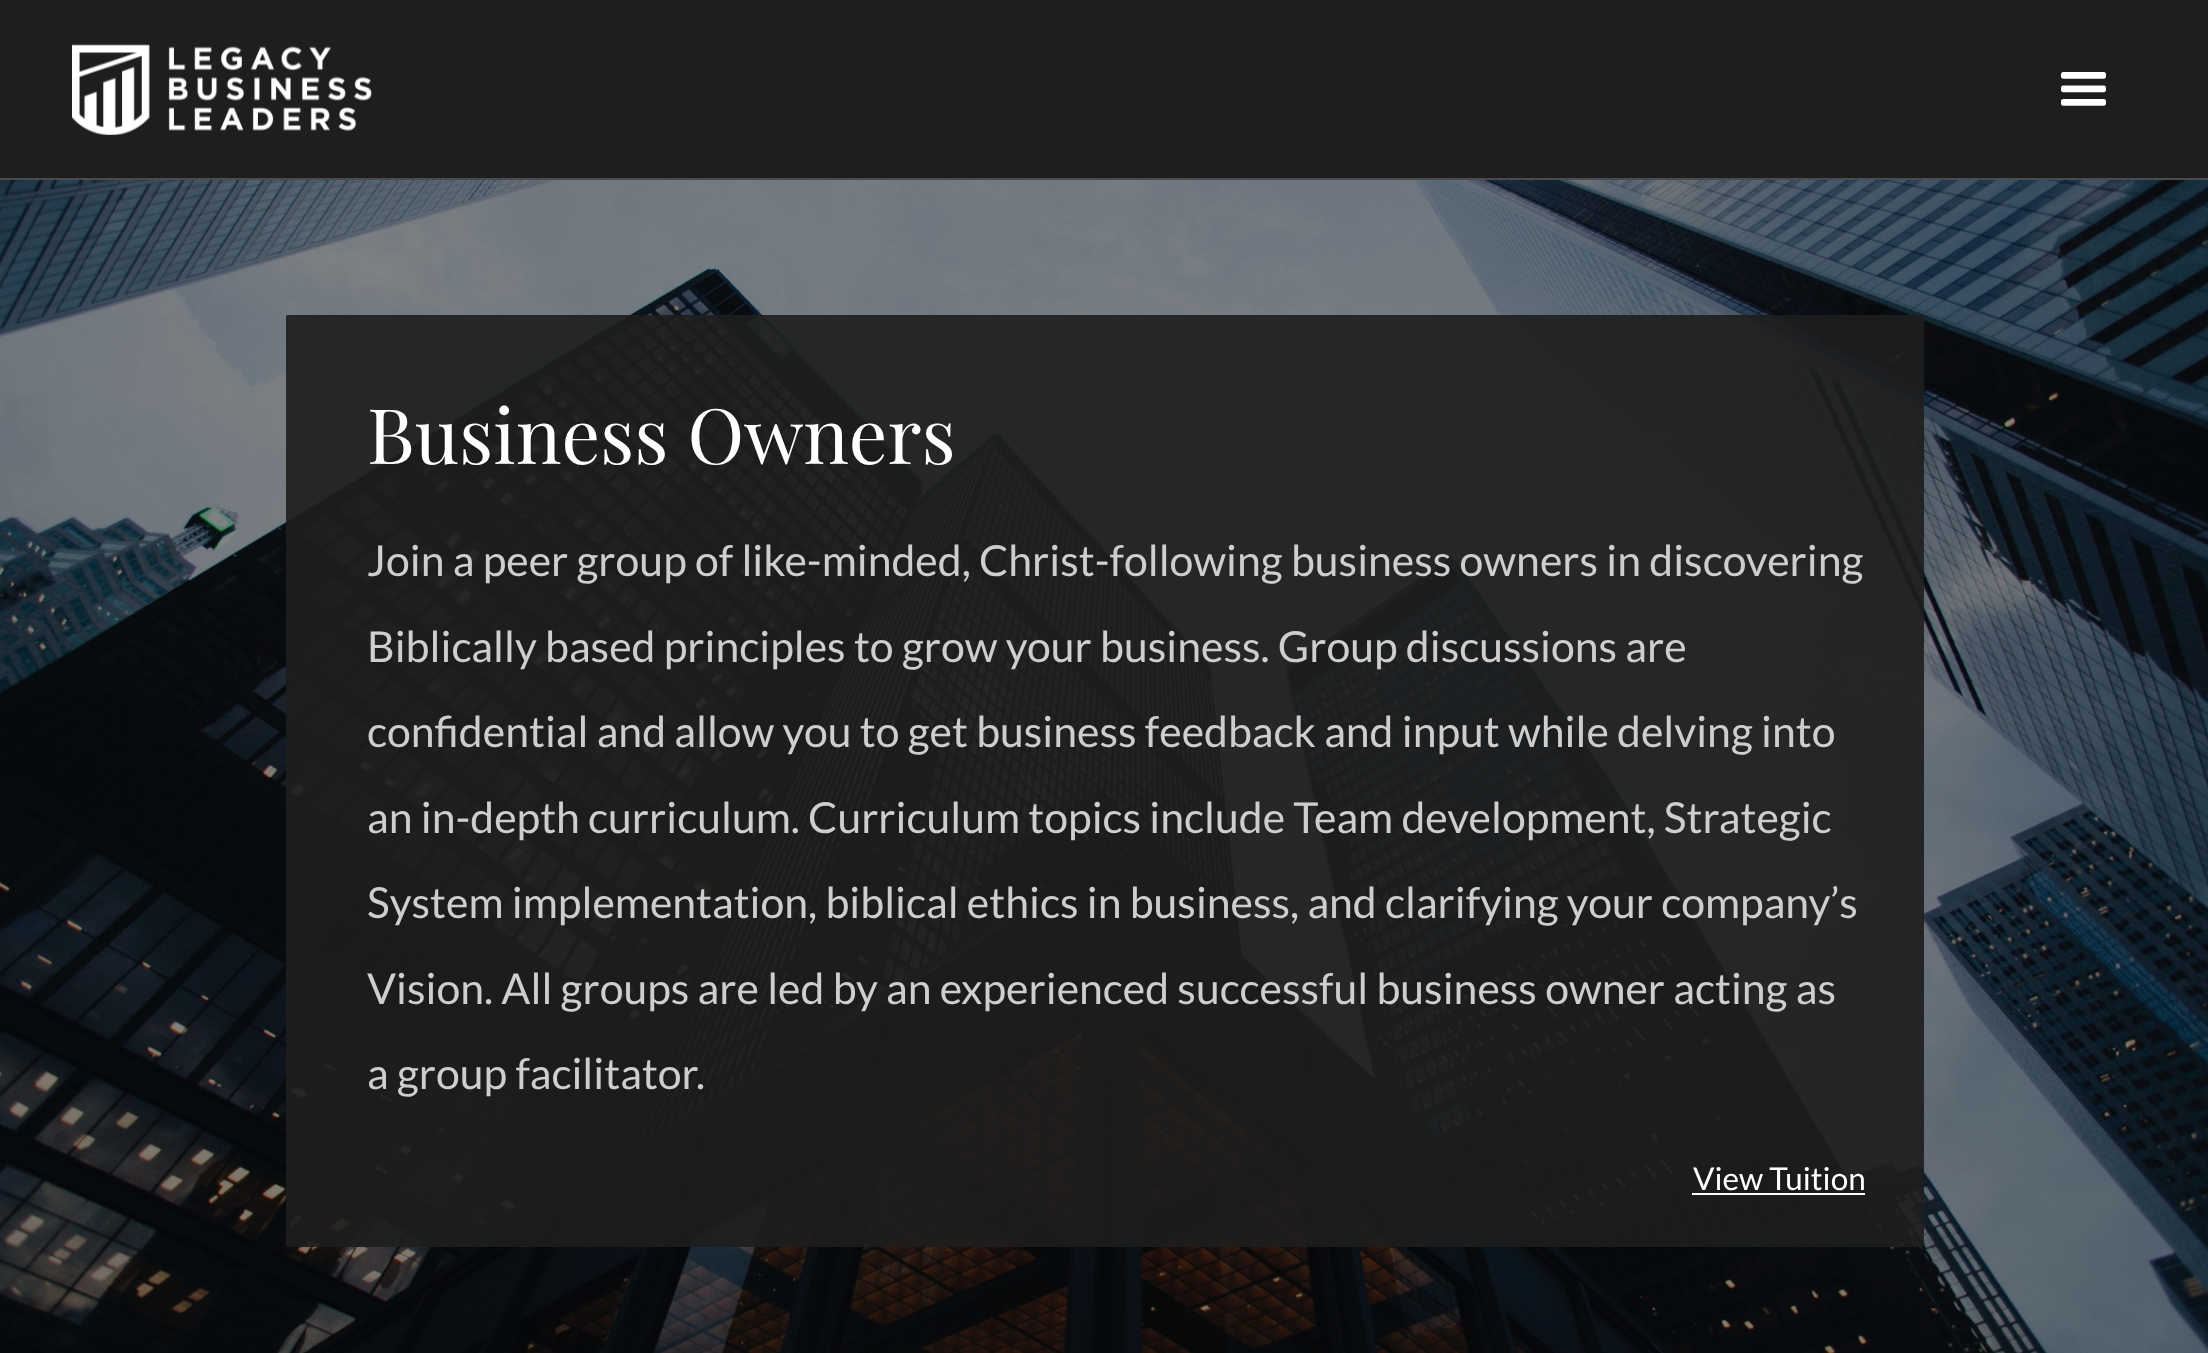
<svg xmlns="http://www.w3.org/2000/svg" width="2208" height="1353" viewBox="0 0 2208 1353">
  <rect width="100%" height="100%" fill="#ffffff"/>
  <rect x="0" y="0" width="2208" height="178" fill="#1e1e1e"/>
  <rect x="0" y="178" width="2208" height="2" fill="#4b4b4b"/>
  <image x="72" y="44" width="300" height="91" href="img1.png"/>
  <image x="2061" y="72" width="45" height="34" href="img2.png"/>
  <image x="0" y="180" width="2208" height="1173" href="img3.png"/>
  <rect x="286" y="315" width="1638" height="932" rx="2" fill="#1e1e1e" fill-opacity="0.91"/>
  <text x="367" y="464" font-family="Playfair Display" font-size="76.5" fill="#ffffff">Business Owners</text>
  <text x="367" y="576" font-family="Lato" font-size="42.75" fill="#cecece">Join a peer group of like-minded, Christ-following business owners in discovering</text>
  <text x="367" y="662" font-family="Lato" font-size="42.75" fill="#cecece">Biblically based principles to grow your business. Group discussions are</text>
  <text x="367" y="747" font-family="Lato" font-size="42.75" fill="#cecece">confidential and allow you to get business feedback and input while delving into</text>
  <text x="367" y="833" font-family="Lato" font-size="42.75" fill="#cecece">an in-depth curriculum. Curriculum topics include Team development, Strategic</text>
  <text x="367" y="918" font-family="Lato" font-size="42.75" fill="#cecece">System implementation, biblical ethics in business, and clarifying your company’s</text>
  <text x="367" y="1004" font-family="Lato" font-size="42.75" fill="#cecece">Vision. All groups are led by an experienced successful business owner acting as</text>
  <text x="367" y="1089" font-family="Lato" font-size="42.75" fill="#cecece">a group facilitator.</text>
  <text x="1693" y="1190" font-family="Lato" font-size="31.5" fill="#ffffff">View Tuition</text>
  <rect x="1692" y="1193" width="173" height="2" fill="#ffffff"/>
</svg>
